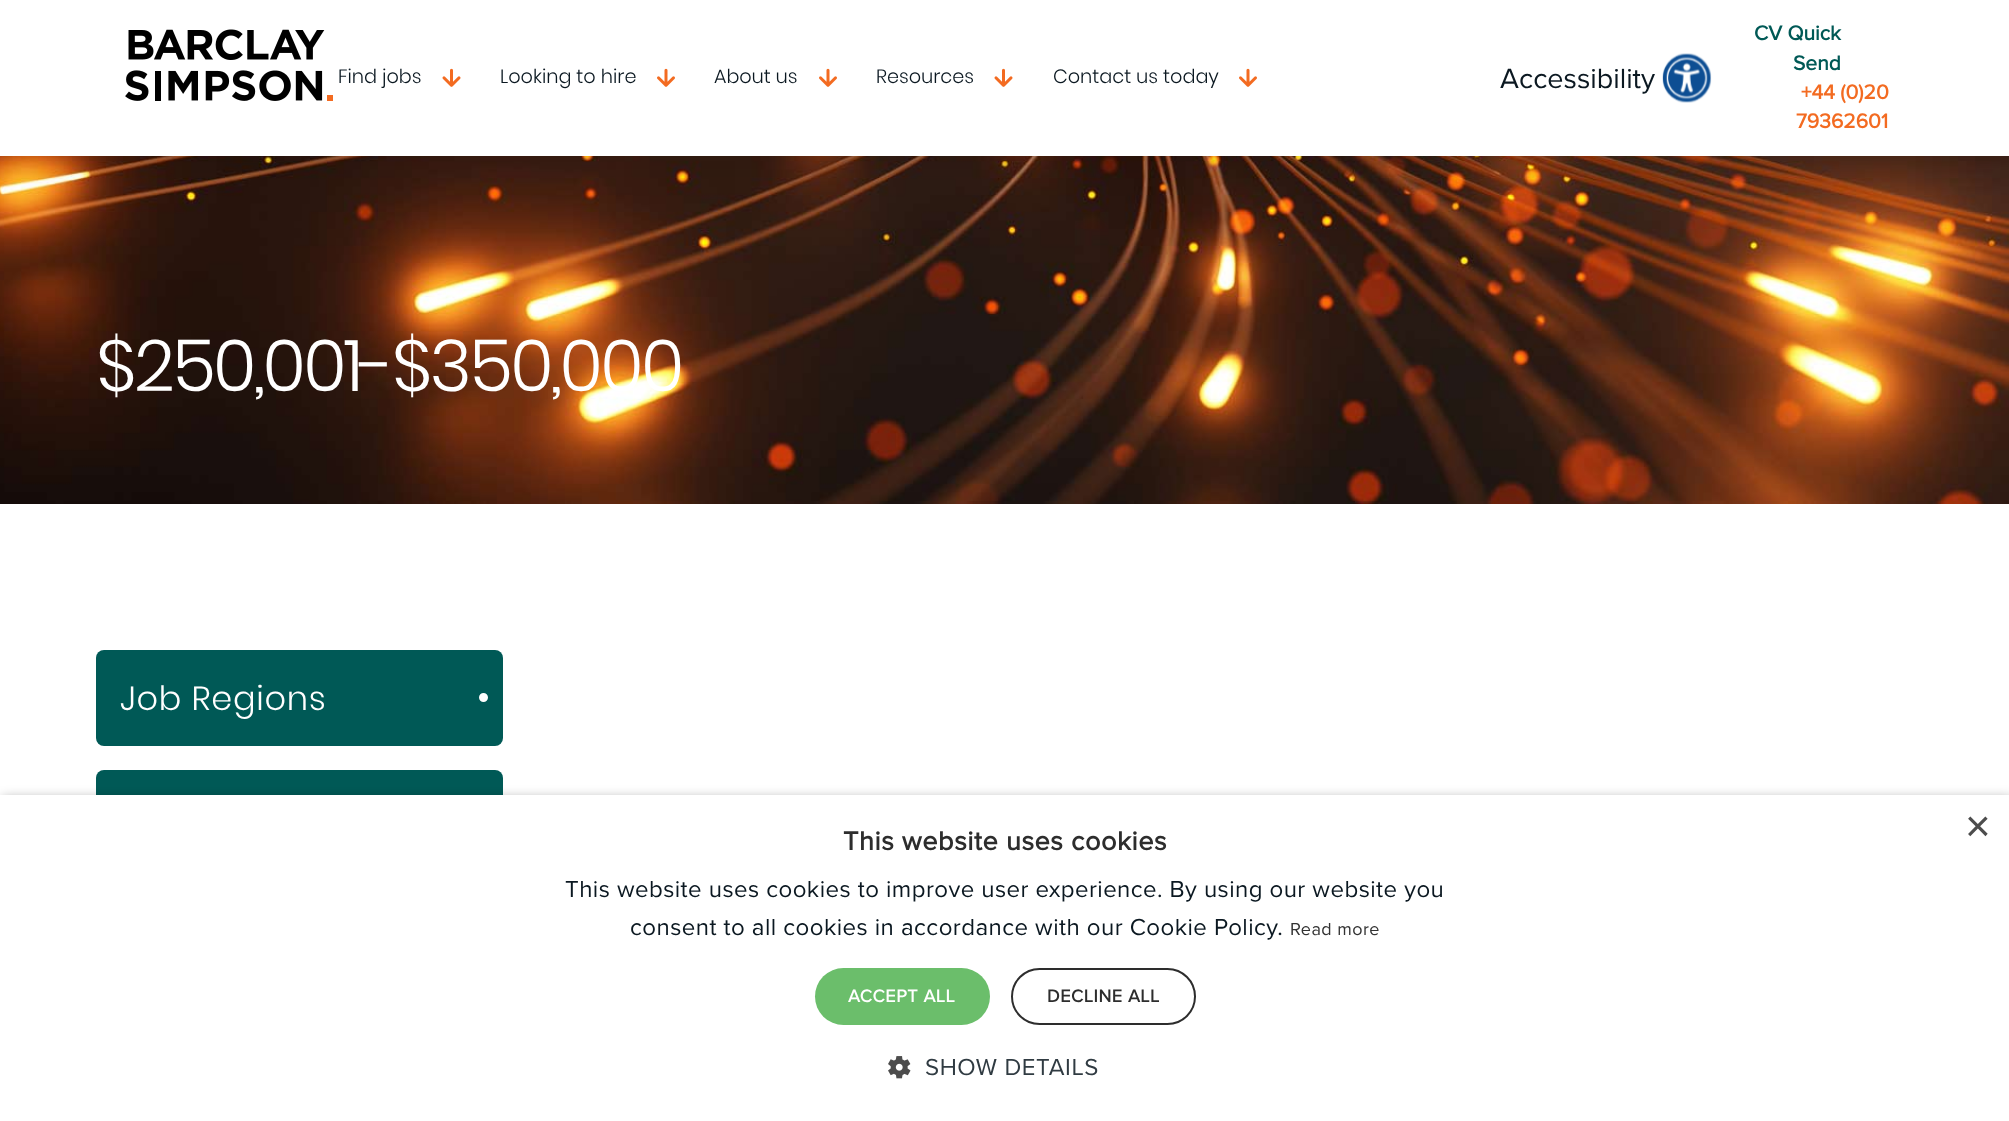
<svg xmlns="http://www.w3.org/2000/svg" width="2009" height="1121" viewBox="0 0 2009 1121">
  <defs>
    <filter id="blur1" x="-50%" y="-200%" width="200%" height="500%"><feGaussianBlur stdDeviation="18"/></filter>
    <filter id="blur2" x="-50%" y="-200%" width="200%" height="500%"><feGaussianBlur stdDeviation="6"/></filter>
  </defs>
  <rect width="100%" height="100%" fill="#ffffff"/>
  <image x="0" y="156" width="2009" height="348" href="img5.png"/>
  <rect x="0" y="6" width="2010" height="156" fill="#000000" fill-opacity="0.05" filter="url(#blur1)"/>
  <rect x="0" y="0" width="2009" height="156" fill="#ffffff"/>
  <image x="125" y="29" width="208" height="72" href="img1.png"/>
  <text x="338" y="83" font-family="Poppins" font-size="19.25" font-weight="300" fill="#0b1821">Find jobs</text>
  <image x="442" y="68" width="19" height="19" href="img2.png"/>
  <text x="500" y="83" font-family="Poppins" font-size="19.25" font-weight="300" fill="#0b1821">Looking to hire</text>
  <image x="657" y="68" width="18" height="19" href="img3.png"/>
  <text x="714" y="83" font-family="Poppins" font-size="19.25" font-weight="300" fill="#0b1821">About us</text>
  <image x="819" y="68" width="18" height="19" href="img3.png"/>
  <text x="876" y="83" font-family="Poppins" font-size="19.25" font-weight="300" fill="#0b1821">Resources</text>
  <image x="994" y="68" width="19" height="19" href="img2.png"/>
  <text x="1053" y="83" font-family="Poppins" font-size="19.25" font-weight="300" fill="#0b1821">Contact us today</text>
  <image x="1239" y="68" width="18" height="19" href="img3.png"/>
  <text x="1500" y="88" font-family="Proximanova" font-size="28.75" fill="#0b1821">Accessibility</text>
  <image x="1662" y="53" width="50" height="50" href="img4.png"/>
  <text x="1754" y="40" font-family="Proximanova" font-size="21" font-weight="bold" fill="#005956">CV Quick</text>
  <text x="1793" y="70" font-family="Proximanova" font-size="21" font-weight="bold" fill="#005956">Send</text>
  <text x="1801" y="99" font-family="Proximanova" font-size="21" font-weight="bold" fill="#f36b21">+44 (0)20</text>
  <text x="1796" y="128" font-family="Proximanova" font-size="21" font-weight="bold" fill="#f36b21">79362601</text>
  <text x="96" y="391" font-family="Poppins" font-size="72" font-weight="300" letter-spacing="-2.9" fill="#ffffff">$250,001-$350,000</text>
  <rect x="96" y="650" width="407" height="96" rx="8" fill="#005956"/>
  <text x="120" y="710" font-family="Poppins" font-size="33.5" font-weight="300" letter-spacing="0.75" fill="#ffffff">Job Regions</text>
  <circle cx="483.5" cy="697.5" r="3.5" fill="#ffffff" stroke="#ffffff" stroke-width="2"/>
  <rect x="96" y="770" width="407" height="96" rx="8" fill="#005956"/>
  <rect x="2" y="798" width="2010" height="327" fill="#000000" fill-opacity="0.35" filter="url(#blur2)"/>
  <rect x="0" y="795" width="2009" height="326" fill="#ffffff"/>
  <text x="1965" y="841" font-family="Liberation Sans" font-size="44" fill="#4d4d4d">×</text>
  <text x="843" y="850" font-family="Proximanova" font-size="27" font-weight="bold" letter-spacing="0.6" fill="#2d2d2d">This website uses cookies</text>
  <text x="565" y="897" font-family="Proximanova" font-size="24" letter-spacing="0.45" fill="#0b1821">This website uses cookies to improve user experience. By using our website you</text>
  <text x="630" y="935" font-family="Proximanova" font-size="24" letter-spacing="0.45" fill="#0b1821">consent to all cookies in accordance with our Cookie Policy.</text>
  <text x="1290" y="935" font-family="Proximanova" font-size="18" letter-spacing="0.45" fill="#333333">Read more</text>
  <rect x="815" y="968" width="175" height="57" rx="28.5" fill="#6bbe6b"/>
  <text x="848" y="1002" font-family="Proximanova" font-size="18" font-weight="bold" letter-spacing="0.6" fill="#ffffff">ACCEPT ALL</text>
  <rect x="1012" y="969" width="183" height="55" rx="27.5" fill="none" stroke="#2d2d2d" stroke-width="2"/>
  <text x="1047" y="1002" font-family="Proximanova" font-size="18" font-weight="bold" letter-spacing="0.6" fill="#2d2d2d">DECLINE ALL</text>
  <image x="888" y="1056" width="23" height="23" href="img6.png"/>
  <text x="925" y="1075" font-family="Proximanova" font-size="24" letter-spacing="0.6" fill="#303b42">SHOW DETAILS</text>
</svg>
